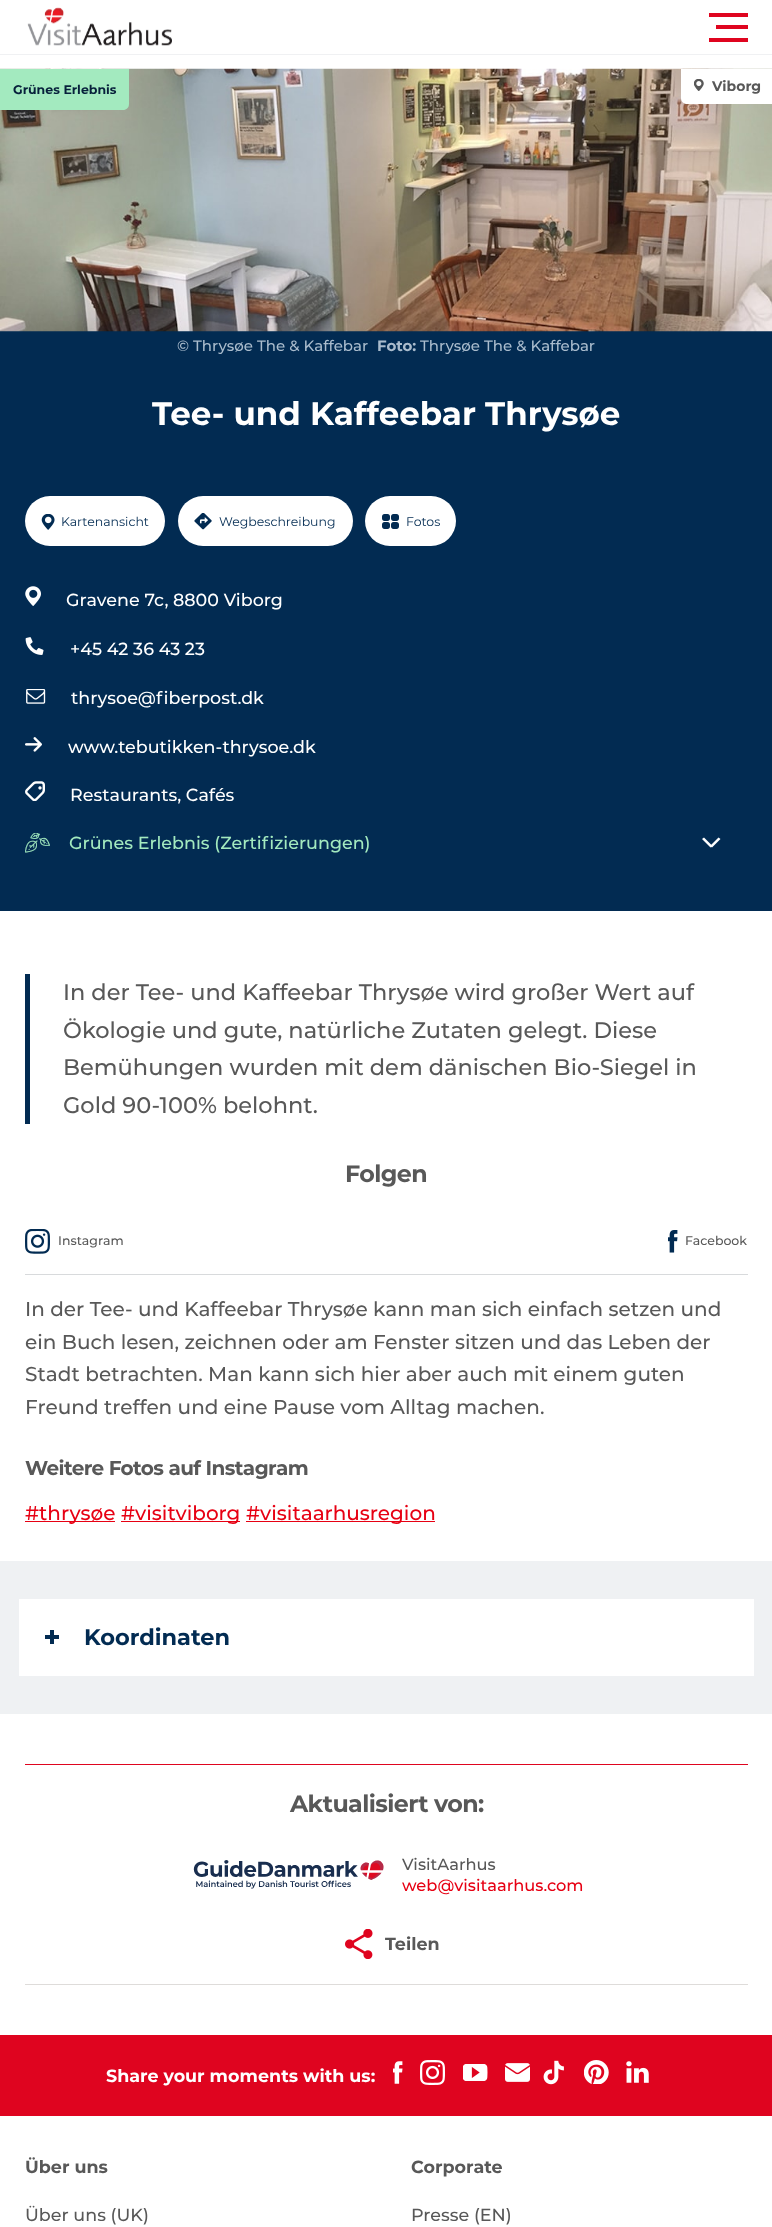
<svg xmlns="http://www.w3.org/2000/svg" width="772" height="2227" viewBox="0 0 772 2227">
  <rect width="100%" height="100%" fill="#ffffff"/>
  <rect x="0" y="54" width="772" height="1" fill="#f0f1f3"/>
  <image x="27" y="7" width="145" height="39" href="img1.png"/>
  <rect x="709" y="13" width="39" height="4" fill="#df041f"/>
  <rect x="716" y="25" width="32" height="4" fill="#df041f"/>
  <rect x="709" y="38" width="39" height="4" fill="#df041f"/>
  <rect x="0" y="331" width="772" height="580" fill="#022b52"/>
  <image x="0" y="68" width="772" height="264" href="img2.png"/>
  <path d="M0 69H129V104C129 107.5 126.5 110 123 110H0Z" fill="#a3eabf"/>
  <text x="13" y="94" font-family="Montserrat" font-size="12.5" font-weight="bold" fill="#07203b">Grünes Erlebnis</text>
  <path d="M681 69H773V104H687C683.5 104 681 101.5 681 98Z" fill="#ffffff"/>
  <image x="694" y="79" width="10" height="12" href="img3.png"/>
  <text x="712" y="91" font-family="Montserrat" font-size="14" font-weight="bold" fill="#585858">Viborg</text>
  <text x="177" y="351" font-family="Montserrat" font-size="15" font-weight="500" fill="#aabccd">© Thrysøe The &amp; Kaffebar</text>
  <text x="377" y="351" font-family="Montserrat" font-size="15" font-weight="bold" fill="#aabccd">Foto:</text>
  <text x="420" y="351" font-family="Montserrat" font-size="15" font-weight="500" fill="#aabccd">Thrysøe The &amp; Kaffebar</text>
  <text x="152" y="425" font-family="Montserrat" font-size="32.5" font-weight="bold" fill="#ffffff">Tee- und Kaffeebar Thrysøe</text>
  <rect x="25" y="496" width="140" height="50" rx="25" fill="#ffffff"/>
  <image x="41" y="514" width="14" height="16" href="img4.png"/>
  <text x="61" y="526" font-family="Montserrat" font-size="12.5" fill="#022b52">Kartenansicht</text>
  <rect x="178" y="496" width="175" height="50" rx="25" fill="#ffffff"/>
  <image x="194" y="513" width="18" height="17" href="img5.png"/>
  <text x="219" y="526" font-family="Montserrat" font-size="12.5" fill="#022b52">Wegbeschreibung</text>
  <rect x="365" y="496" width="91" height="50" rx="25" fill="#ffffff"/>
  <image x="382" y="514" width="17" height="15" href="img6.png"/>
  <text x="406" y="526" font-family="Montserrat" font-size="12.5" fill="#022b52">Fotos</text>
  <image x="25" y="586" width="16" height="20" href="img7.png"/>
  <text x="66" y="606" font-family="Montserrat" font-size="17.5" font-weight="500" fill="#ffffff">Gravene 7c, 8800 Viborg</text>
  <image x="25" y="637" width="19" height="18" href="img8.png"/>
  <text x="70" y="655" font-family="Montserrat" font-size="17.5" font-weight="500" fill="#ffffff">+45 42 36 43 23</text>
  <image x="26" y="689" width="20" height="15" href="img9.png"/>
  <text x="71" y="704" font-family="Montserrat" font-size="17.5" font-weight="500" fill="#ffffff">thrysoe@fiberpost.dk</text>
  <image x="25" y="737" width="17" height="15" href="img10.png"/>
  <text x="68" y="753" font-family="Montserrat" font-size="17.5" font-weight="500" fill="#ffffff">www.tebutikken-thrysoe.dk</text>
  <image x="25" y="781" width="20" height="20" href="img11.png"/>
  <text x="70" y="801" font-family="Montserrat" font-size="17.5" font-weight="500" fill="#ffffff">Restaurants, Cafés</text>
  <image x="25" y="833" width="25" height="20" href="img12.png"/>
  <text x="69" y="849" font-family="Montserrat" font-size="17.5" font-weight="500" fill="#a3eabf">Grünes Erlebnis (Zertifizierungen)</text>
  <path d="M704 837.5L712.5 846L710.5 847.5L702 839Z" fill="#ffffff"/>
  <path d="M710 846L718.5 837.5L720.5 839L712 847.5Z" fill="#ffffff"/>
  <rect x="25" y="974" width="5" height="150" fill="#022b52"/>
  <text x="63" y="1000" font-family="Montserrat" font-size="22.5" font-weight="500" fill="#585858">In der Tee- und Kaffeebar Thrysøe wird großer Wert auf</text>
  <text x="63" y="1038" font-family="Montserrat" font-size="22.5" font-weight="500" fill="#585858">Ökologie und gute, natürliche Zutaten gelegt. Diese</text>
  <text x="63" y="1075" font-family="Montserrat" font-size="22.5" font-weight="500" fill="#585858">Bemühungen wurden mit dem dänischen Bio-Siegel in</text>
  <text x="63" y="1113" font-family="Montserrat" font-size="22.5" font-weight="500" fill="#585858">Gold 90-100% belohnt.</text>
  <rect x="25" y="1274" width="723" height="1" fill="#d8dadc"/>
  <text x="345" y="1182" font-family="Montserrat" font-size="23.75" font-weight="bold" letter-spacing="-0.6" fill="#585858">Folgen</text>
  <image x="25" y="1229" width="25" height="25" href="img13.png"/>
  <text x="58" y="1245" font-family="Montserrat" font-size="12.5" font-weight="500" fill="#585858">Instagram</text>
  <image x="668" y="1230" width="10" height="23" href="img14.png"/>
  <text x="685" y="1245" font-family="Montserrat" font-size="12.5" font-weight="500" fill="#585858">Facebook</text>
  <text x="25" y="1316" font-family="Montserrat" font-size="20" font-weight="500" fill="#585858">In der Tee- und Kaffeebar Thrysøe kann man sich einfach setzen und</text>
  <text x="25" y="1349" font-family="Montserrat" font-size="20" font-weight="500" fill="#585858">ein Buch lesen, zeichnen oder am Fenster sitzen und das Leben der</text>
  <text x="25" y="1381" font-family="Montserrat" font-size="20" font-weight="500" fill="#585858">Stadt betrachten. Man kann sich hier aber auch mit einem guten</text>
  <text x="25" y="1414" font-family="Montserrat" font-size="20" font-weight="500" fill="#585858">Freund treffen und eine Pause vom Alltag machen.</text>
  <text x="25" y="1475" font-family="Montserrat" font-size="20" font-weight="bold" letter-spacing="-0.6" fill="#585858">Weitere Fotos auf Instagram</text>
  <rect x="25" y="1521" width="90" height="1" fill="#e70013"/>
  <text x="25" y="1520" font-family="Montserrat" font-size="20" font-weight="500" fill="#e70013">#thrysøe</text>
  <rect x="121" y="1521" width="119" height="1" fill="#e70013"/>
  <text x="121" y="1520" font-family="Montserrat" font-size="20" font-weight="500" fill="#e70013">#visitviborg</text>
  <rect x="246" y="1521" width="189" height="1" fill="#e70013"/>
  <text x="246" y="1520" font-family="Montserrat" font-size="20" font-weight="500" fill="#e70013">#visitaarhusregion</text>
  <rect x="0" y="1561" width="772" height="153" fill="#eff1f3"/>
  <rect x="19" y="1599" width="735" height="77" fill="#ffffff"/>
  <rect x="45" y="1635" width="14" height="4" fill="#022b52"/>
  <rect x="50" y="1630" width="4" height="14" fill="#022b52"/>
  <text x="84" y="1645" font-family="Montserrat" font-size="22.5" font-weight="bold" fill="#022b52">Koordinaten</text>
  <rect x="25" y="1764" width="723" height="1" fill="#df041f"/>
  <rect x="25" y="1984" width="723" height="1" fill="#dedcda"/>
  <text x="290" y="1812" font-family="Montserrat" font-size="23.75" font-weight="bold" letter-spacing="-0.6" fill="#585858">Aktualisiert von:</text>
  <image x="193" y="1860" width="191" height="29" href="img15.png"/>
  <text x="402" y="1870" font-family="Montserrat" font-size="16.25" font-weight="500" fill="#585858">VisitAarhus</text>
  <text x="402" y="1891" font-family="Montserrat" font-size="16.25" font-weight="500" fill="#e70013">web@visitaarhus.com</text>
  <image x="345" y="1929" width="28" height="30" href="img16.png"/>
  <text x="385" y="1950" font-family="Montserrat" font-size="17.5" font-weight="bold" fill="#585858">Teilen</text>
  <rect x="0" y="2035" width="772" height="81" fill="#df041f"/>
  <text x="106" y="2082" font-family="Montserrat" font-size="17.5" font-weight="bold" fill="#ffffff">Share your moments with us:</text>
  <image x="393" y="2061" width="10" height="23" href="img17.png"/>
  <image x="420" y="2060" width="25" height="25" href="img18.png"/>
  <image x="463" y="2064" width="25" height="17" href="img19.png"/>
  <image x="505" y="2063" width="25" height="19" href="img20.png"/>
  <image x="543" y="2060" width="21" height="25" href="img21.png"/>
  <image x="584" y="2060" width="25" height="24" href="img22.png"/>
  <image x="626" y="2061" width="23" height="22" href="img23.png"/>
  <text x="25" y="2173" font-family="Montserrat" font-size="17.5" font-weight="bold" fill="#585858">Über uns</text>
  <text x="25" y="2221" font-family="Montserrat" font-size="17.5" font-weight="500" fill="#585858">Über uns (UK)</text>
  <text x="411" y="2173" font-family="Montserrat" font-size="17.5" font-weight="bold" fill="#585858">Corporate</text>
  <text x="411" y="2221" font-family="Montserrat" font-size="17.5" font-weight="500" fill="#585858">Presse (EN)</text>
</svg>
